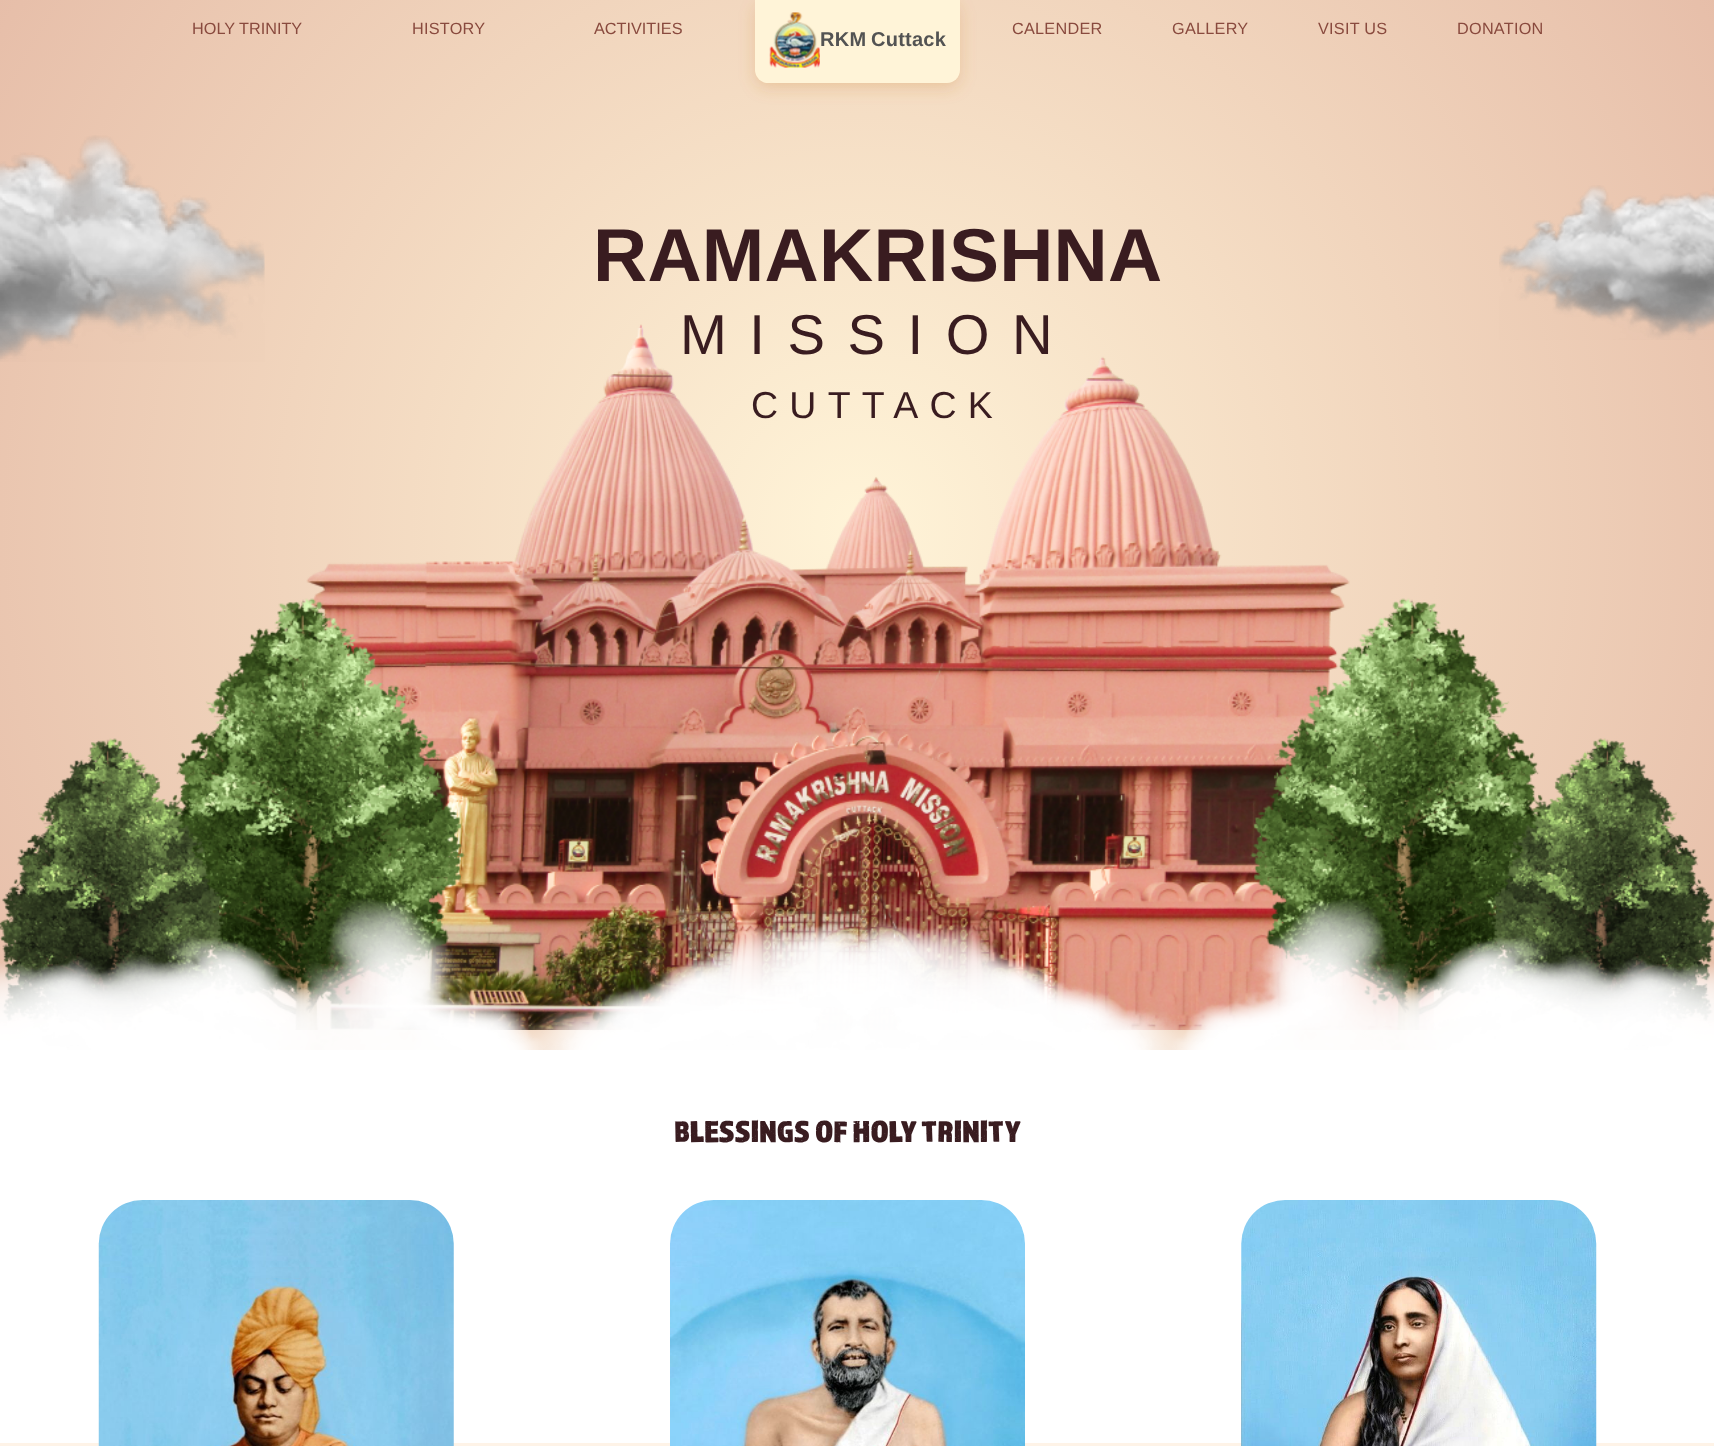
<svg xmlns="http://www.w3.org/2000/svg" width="1714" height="1446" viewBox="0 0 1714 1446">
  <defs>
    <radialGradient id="g1" gradientUnits="userSpaceOnUse" cx="0" cy="0" r="1" gradientTransform="matrix(2013 0 0 2020 858 525)"><stop offset="0" stop-color="#fff4d8"/><stop offset="1" stop-color="#ce887a"/></radialGradient>
    <filter id="blur1" x="-50%" y="-200%" width="200%" height="500%"><feGaussianBlur stdDeviation="8"/></filter>
  </defs>
  <rect width="100%" height="100%" fill="#ffffff"/>
  <rect x="0" y="0" width="1714" height="1050" fill="url(#g1)"/>
  <text x="192" y="34" font-family="Liberation Sans" font-size="16.25" fill="#894a3e">HOLY TRINITY</text>
  <text x="412" y="34" font-family="Liberation Sans" font-size="16.25" letter-spacing="0.25" fill="#894a3e">HISTORY</text>
  <text x="594" y="34" font-family="Liberation Sans" font-size="16.25" fill="#894a3e">ACTIVITIES</text>
  <text x="1012" y="34" font-family="Liberation Sans" font-size="16.25" letter-spacing="0.25" fill="#894a3e">CALENDER</text>
  <text x="1172" y="34" font-family="Liberation Sans" font-size="16.25" letter-spacing="0.25" fill="#894a3e">GALLERY</text>
  <text x="1318" y="34" font-family="Liberation Sans" font-size="16.25" letter-spacing="0.25" fill="#894a3e">VISIT US</text>
  <text x="1457" y="34" font-family="Liberation Sans" font-size="16.25" letter-spacing="0.25" fill="#894a3e">DONATION</text>
  <rect x="755" y="3" width="205" height="85" rx="13" fill="#c9812c" fill-opacity="0.25" filter="url(#blur1)"/>
  <path d="M755-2H960V70C960 77 954 83 947 83H768C761 83 755 77 755 70Z" fill="#fff4d8"/>
  <image x="769" y="12" width="51" height="56" href="img1.png"/>
  <text x="820" y="46" font-family="Liberation Sans" font-size="20" font-weight="bold" letter-spacing="0.25" fill="#535353">RKM</text>
  <text x="871" y="46" font-family="Liberation Sans" font-size="20" font-weight="bold" letter-spacing="0.25" fill="#535353">Cuttack</text>
  <image x="0" y="324" width="1714" height="706" href="img4.png"/>
  <image x="0" y="135" width="265" height="227" href="img2.png"/>
  <text x="593" y="281" font-family="Liberation Sans" font-size="75" font-weight="bold" letter-spacing="0.25" fill="#391c20">RAMAKRISHNA</text>
  <text x="680" y="354" font-family="Liberation Sans" font-size="56.25" letter-spacing="22.5" fill="#391c20">MISSION</text>
  <text x="751" y="418" font-family="Liberation Sans" font-size="37.5" letter-spacing="11.25" fill="#391c20">CUTTACK</text>
  <image x="1499" y="185" width="215" height="155" href="img3.png"/>
  <image x="0" y="898" width="1714" height="152" href="img5.png"/>
  <rect x="0" y="1443" width="1714" height="3" fill="#fef3e7"/>
  <text x="674" y="1142" font-family="'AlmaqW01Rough'" font-size="30" font-weight="bold" letter-spacing="0.6" fill="#391c20">BLESSINGS OF HOLY TRINITY</text>
  <image x="98" y="1200" width="356" height="246" href="img6.png"/>
  <image x="670" y="1200" width="355" height="246" href="img7.png"/>
  <image x="1241" y="1200" width="356" height="246" href="img8.png"/>
</svg>
